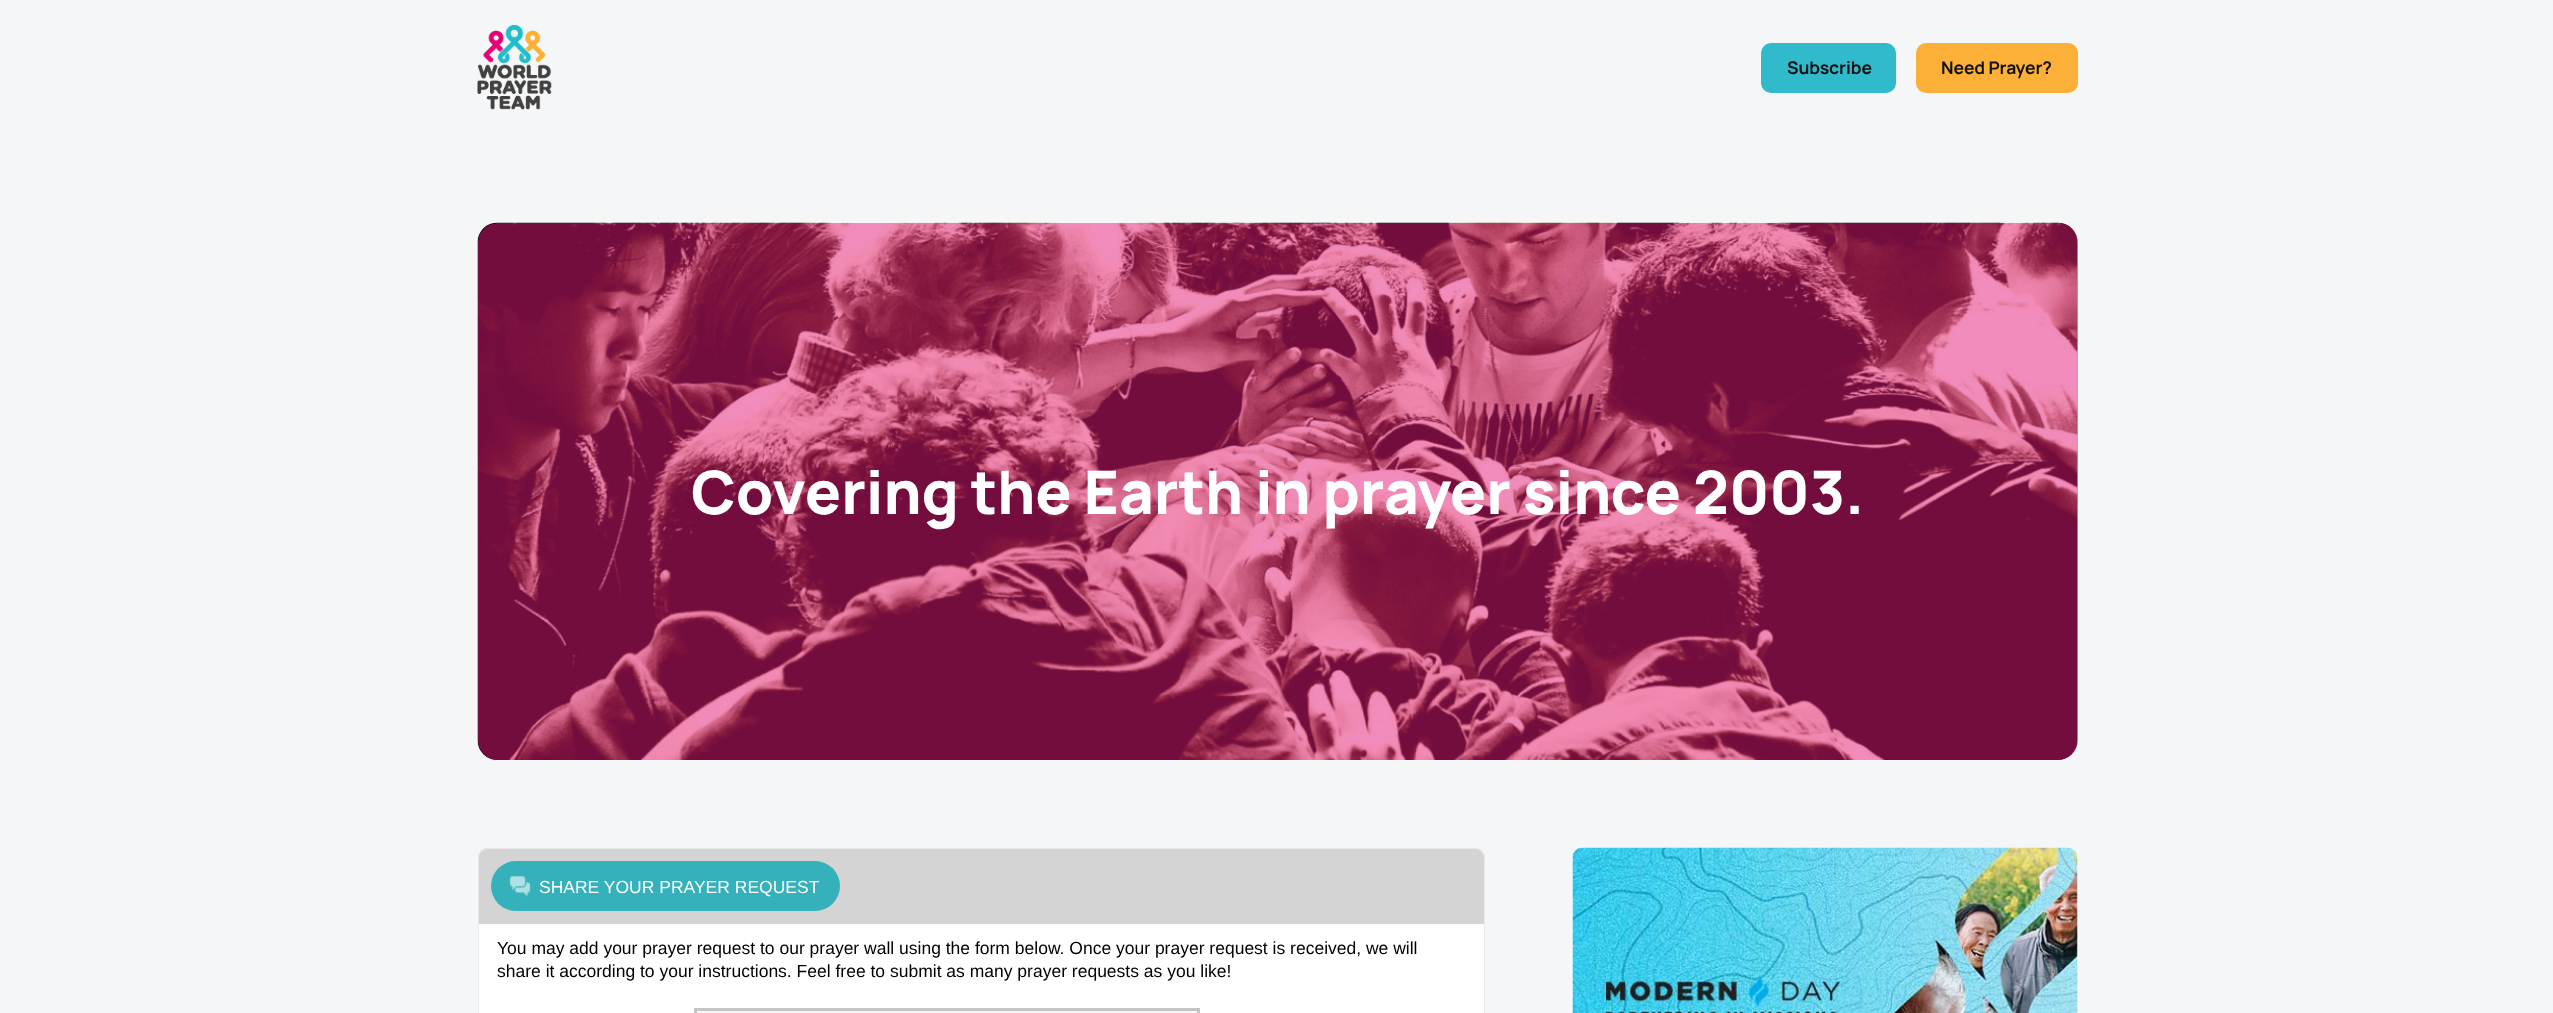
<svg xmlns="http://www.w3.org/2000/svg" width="2553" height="1013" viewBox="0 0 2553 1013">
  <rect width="100%" height="100%" fill="#f4f6f8"/>
  <image x="477" y="25" width="75" height="85" href="img1.png"/>
  <rect x="1761" y="43" width="135" height="50" rx="10" fill="#31bacc"/>
  <text x="1787" y="74" font-family="Manrope" font-size="17.5" font-weight="bold" letter-spacing="-0.1" fill="#111111">Subscribe</text>
  <rect x="1916" y="43" width="162" height="50" rx="10" fill="#fcb037"/>
  <text x="1941" y="74" font-family="Manrope" font-size="17.5" font-weight="bold" letter-spacing="-0.1" fill="#111111">Need Prayer?</text>
  <image x="477" y="222" width="1601" height="538" href="img2.png"/>
  <rect x="478" y="223" width="1600" height="537" rx="20" fill="#e3197b" fill-opacity="0.5"/>
  <text x="691" y="514" font-family="Manrope" font-size="60" font-weight="800" letter-spacing="-0.1" fill="#ffffff">Covering the Earth in prayer since 2003.</text>
  <path d="M488 848H1475C1480.5 848 1485 852.5 1485 858V924H478V858C478 852.5 482.5 848 488 848Z" fill="#d4d4d4"/>
  <path d="M488 848H1475C1481 848 1485 852 1485 858V924H478V858C478 852 482 848 488 848ZM488 849H1475C1480 849 1484 853 1484 858V924H479V858C479 853 483 849 488 849Z" fill="#e7e9eb" fill-rule="evenodd"/>
  <rect x="491" y="861" width="349" height="50" rx="25" fill="#35b1bb"/>
  <image x="509" y="876" width="22" height="21" href="img3.png"/>
  <text x="539" y="893" font-family="Liberation Sans" font-size="17.5" fill="#ffffff">SHARE YOUR PRAYER REQUEST</text>
  <rect x="1484" y="924" width="1" height="89" fill="#e7e9eb"/>
  <rect x="478" y="924" width="1" height="89" fill="#e7e9eb"/>
  <rect x="479" y="924" width="1005" height="89" fill="#ffffff"/>
  <text x="497" y="954" font-family="Liberation Sans" font-size="17.5" fill="#000000">You may add your prayer request to our prayer wall using the form below. Once your prayer request is received, we will</text>
  <text x="497" y="977" font-family="Liberation Sans" font-size="17.5" fill="#000000">share it according to your instructions. Feel free to submit as many prayer requests as you like!</text>
  <rect x="695.5" y="1009.5" width="503" height="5" fill="#f7f7f7" stroke="#c4c4c4" stroke-width="3"/>
  <image x="1572" y="847" width="506" height="166" href="img4.png"/>
</svg>
